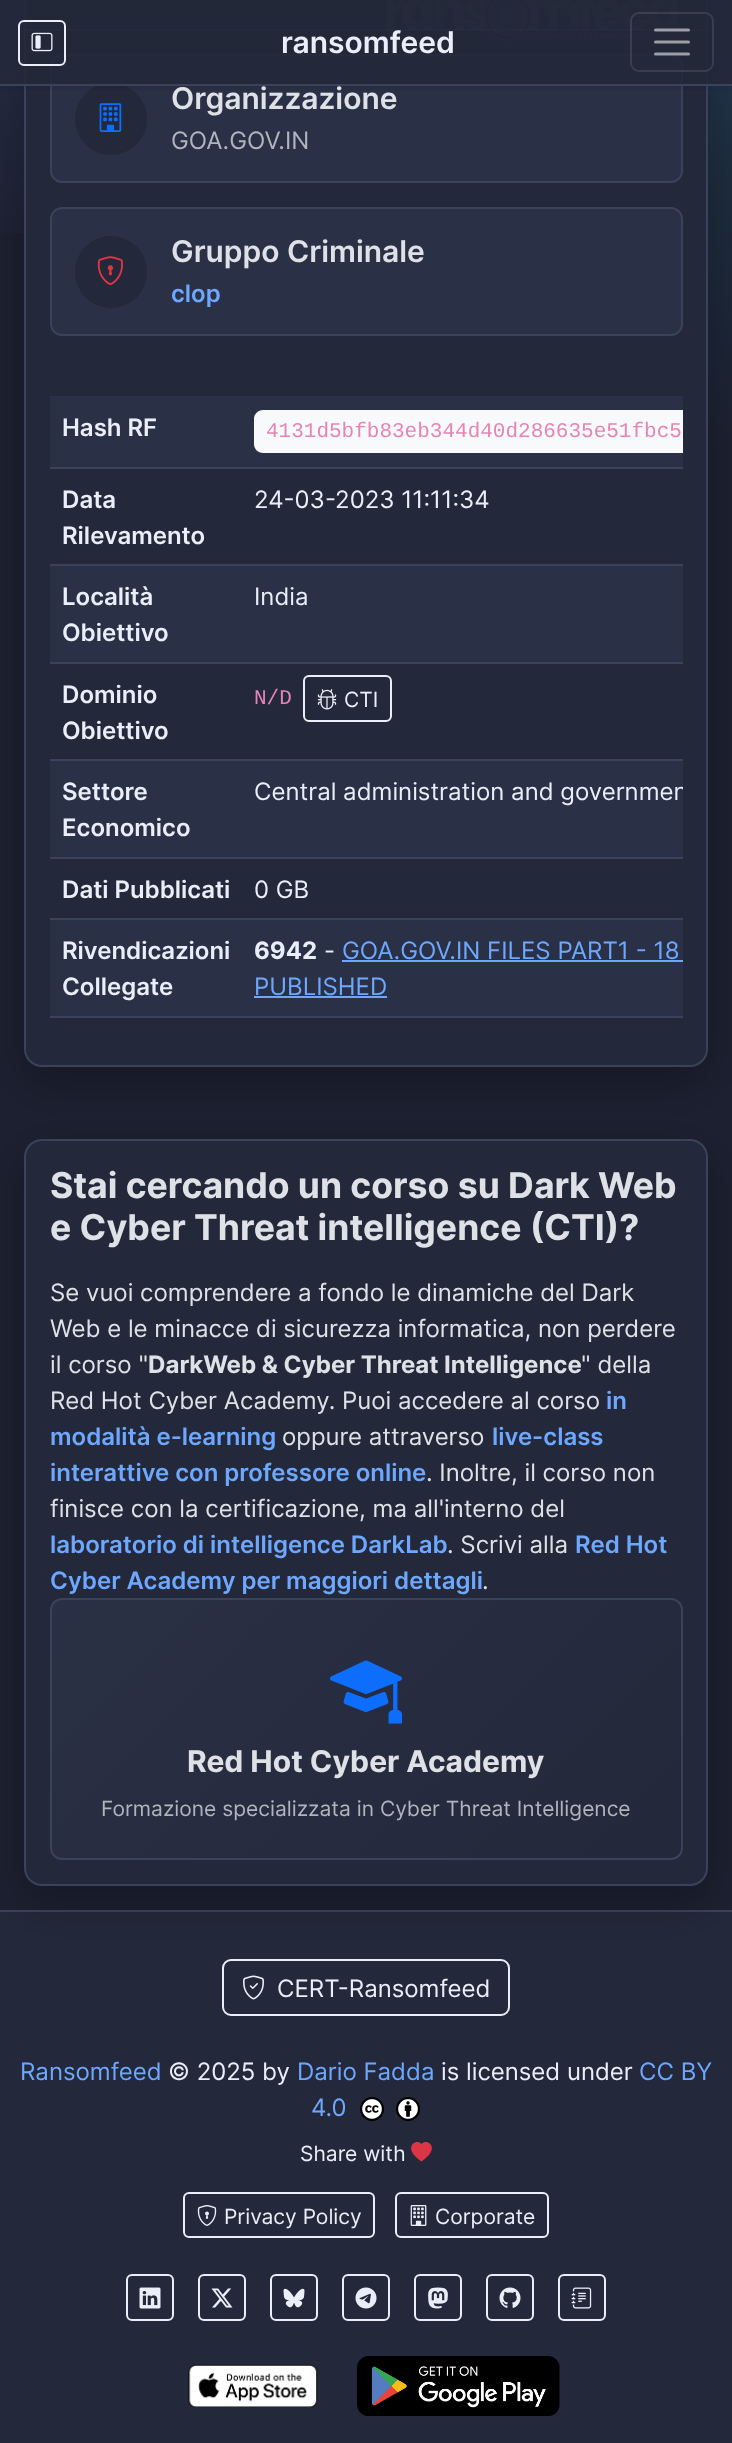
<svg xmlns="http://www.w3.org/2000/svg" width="732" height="2443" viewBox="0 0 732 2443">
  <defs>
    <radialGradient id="g1" gradientUnits="userSpaceOnUse" cx="0" cy="0" r="1" gradientTransform="matrix(1350 0 0 750 732 0)"><stop offset="0" stop-color="#1d3447"/><stop offset="0.6" stop-color="#1c2030"/></radialGradient>
    <radialGradient id="g2" gradientUnits="userSpaceOnUse" cx="0" cy="0" r="1" gradientTransform="matrix(1800 0 0 900 73 -244)"><stop offset="0" stop-color="#7c8aff" stop-opacity="0.18"/><stop offset="0.6" stop-color="#7c8aff" stop-opacity="0"/></radialGradient>
    <filter id="blur1" x="-50%" y="-200%" width="200%" height="500%"><feGaussianBlur stdDeviation="22.5"/></filter>
    <clipPath id="clip1"><rect x="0" y="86" width="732" height="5"/></clipPath>
    <filter id="blur2" x="-50%" y="-200%" width="200%" height="500%"><feGaussianBlur stdDeviation="3"/></filter>
    <clipPath id="clip2"><rect x="50" y="396" width="633" height="645"/></clipPath>
    <clipPath id="clip3"><rect x="50" y="1598" width="633" height="262" rx="12"/></clipPath>
    <linearGradient id="g3" gradientUnits="userSpaceOnUse" x1="144" y1="1506" x2="588" y2="1951"><stop offset="0" stop-color="#2a3045"/><stop offset="1" stop-color="#23283a"/></linearGradient>
  </defs>
  <rect width="100%" height="100%" fill="#ffffff"/>
  <rect x="0" y="0" width="732" height="1910" fill="url(#g1)"/>
  <rect x="0" y="0" width="732" height="233" fill="url(#g2)"/>
  <rect x="24" y="-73" width="684" height="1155" rx="18" fill="#000000" fill-opacity="0.25" filter="url(#blur1)"/>
  <rect x="25" y="-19" width="682" height="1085" rx="17" fill="#23283a" stroke="#3a425c" stroke-width="2"/>
  <rect x="26" y="29" width="681" height="2" fill="#3a425c"/>
  <image x="385" y="0" width="294" height="41" href="img2.png"/>
  <rect x="51" y="55" width="631" height="127" rx="11" fill="#2a3045" stroke="#3a425c" stroke-width="2"/>
  <circle cx="111" cy="119" r="36" fill="#23283a"/>
  <g clip-path="url(#clip1)">
    <rect x="0" y="3" width="732" height="86" fill="#000000" fill-opacity="0.07" filter="url(#blur2)"/>
  </g>
  <rect x="0" y="0" width="732" height="84" fill="#23283a" fill-opacity="0.9"/>
  <rect x="0" y="84" width="732" height="2" fill="#3a425c"/>
  <rect x="19" y="21" width="46" height="44" rx="5" fill="none" stroke="#e9eef8" stroke-width="2"/>
  <image x="31" y="32" width="22" height="20" href="img1.png"/>
  <text x="281" y="53" font-family="Inter" font-size="30" font-weight="600" fill="#e9eef8">ransomfeed</text>
  <rect x="631" y="13" width="82" height="58" rx="8" fill="none" stroke="#ffffff" stroke-opacity="0.1" stroke-width="2"/>
  <path d="M655.5 30H688.5M655.5 42H688.5M655.5 54H688.5" fill="none" stroke="#ffffff" stroke-opacity="0.55" stroke-width="3" stroke-linecap="round"/>
  <image x="99" y="103" width="23" height="29" href="img3.png"/>
  <text x="171" y="109" font-family="Inter" font-size="30" font-weight="600" fill="#dee2e6">Organizzazione</text>
  <text x="171" y="149" font-family="Inter" font-size="24" fill="#b0b4bc">GOA.GOV.IN</text>
  <rect x="51" y="208" width="631" height="127" rx="11" fill="#2a3045" stroke="#3a425c" stroke-width="2"/>
  <circle cx="111" cy="272" r="36" fill="#23283a"/>
  <image x="97" y="256" width="26" height="29" href="img4.png"/>
  <text x="171" y="262" font-family="Inter" font-size="30" font-weight="600" fill="#dee2e6">Gruppo Criminale</text>
  <text x="171" y="302" font-family="Inter" font-size="24" font-weight="600" fill="#6ea8fe">clop</text>
  <rect x="50" y="396" width="633" height="71" fill="#2a3045"/>
  <text x="62" y="436" font-family="Inter" font-size="24" font-weight="600" fill="#e9eef8">Hash RF</text>
  <rect x="50" y="467" width="633" height="2" fill="#3a425c"/>
  <path d="M263 410H683V453H263C258 453 254 449 254 444V419C254 414 258 410 263 410Z" fill="#f8f9fa"/>
  <text x="266" y="437" font-family="Liberation Mono" font-size="21" fill="#e685b5">4131d5bfb83eb344d40d286635e51fbc5</text>
  <text x="62" y="508" font-family="Inter" font-size="24" font-weight="600" fill="#e9eef8">Data</text>
  <text x="62" y="544" font-family="Inter" font-size="24" font-weight="600" fill="#e9eef8">Rilevamento</text>
  <rect x="50" y="564" width="633" height="2" fill="#3a425c"/>
  <text x="254" y="508" font-family="Inter" font-size="24" fill="#e9eef8">24-03-2023 11:11:34</text>
  <rect x="50" y="566" width="633" height="96" fill="#2a3045"/>
  <text x="62" y="605" font-family="Inter" font-size="24" font-weight="600" fill="#e9eef8">Località</text>
  <text x="62" y="641" font-family="Inter" font-size="24" font-weight="600" fill="#e9eef8">Obiettivo</text>
  <rect x="50" y="662" width="633" height="2" fill="#3a425c"/>
  <text x="254" y="605" font-family="Inter" font-size="24" fill="#e9eef8">India</text>
  <text x="62" y="703" font-family="Inter" font-size="24" font-weight="600" fill="#e9eef8">Dominio</text>
  <text x="62" y="739" font-family="Inter" font-size="24" font-weight="600" fill="#e9eef8">Obiettivo</text>
  <rect x="50" y="759" width="633" height="2" fill="#3a425c"/>
  <text x="254" y="704" font-family="Liberation Mono" font-size="21" fill="#e685b5">N/D</text>
  <rect x="304" y="676" width="87" height="45" rx="5" fill="none" stroke="#e9eef8" stroke-width="2"/>
  <image x="317" y="689" width="20" height="21" href="img5.png"/>
  <text x="344" y="707" font-family="Inter" font-size="21" fill="#e9eef8">CTI</text>
  <rect x="50" y="761" width="633" height="96" fill="#2a3045"/>
  <text x="62" y="800" font-family="Inter" font-size="24" font-weight="600" fill="#e9eef8">Settore</text>
  <text x="62" y="836" font-family="Inter" font-size="24" font-weight="600" fill="#e9eef8">Economico</text>
  <rect x="50" y="857" width="633" height="2" fill="#3a425c"/>
  <g clip-path="url(#clip2)">
    <text x="254" y="800" font-family="Inter" font-size="24" fill="#e9eef8">Central administration and governmen</text>
  </g>
  <text x="62" y="898" font-family="Inter" font-size="24" font-weight="600" fill="#e9eef8">Dati Pubblicati</text>
  <rect x="50" y="918" width="633" height="2" fill="#3a425c"/>
  <text x="254" y="898" font-family="Inter" font-size="24" fill="#e9eef8">0 GB</text>
  <rect x="50" y="920" width="633" height="96" fill="#2a3045"/>
  <text x="62" y="959" font-family="Inter" font-size="24" font-weight="600" fill="#e9eef8">Rivendicazioni</text>
  <text x="62" y="995" font-family="Inter" font-size="24" font-weight="600" fill="#e9eef8">Collegate</text>
  <rect x="50" y="1016" width="633" height="2" fill="#3a425c"/>
  <text x="254" y="959" font-family="Inter" font-size="24" font-weight="bold" fill="#e9eef8">6942</text>
  <text x="324" y="959" font-family="Inter" font-size="24" fill="#e9eef8">-</text>
  <text x="342" y="959" font-family="Inter" font-size="24" fill="#6ea8fe">GOA.GOV.IN FILES PART1 - 18</text>
  <rect x="342" y="960" width="341" height="2" fill="#6ea8fe"/>
  <text x="254" y="995" font-family="Inter" font-size="24" fill="#6ea8fe">PUBLISHED</text>
  <rect x="254" y="996" width="133" height="2" fill="#6ea8fe"/>
  <rect x="0" y="1912" width="732" height="531" fill="#23283a"/>
  <rect x="0" y="1910" width="732" height="2" fill="#3a425c"/>
  <rect x="223" y="1960" width="286" height="55" rx="8" fill="none" stroke="#e9eef8" stroke-width="2"/>
  <rect x="24" y="1154" width="684" height="747" rx="18" fill="#000000" fill-opacity="0.25" filter="url(#blur1)"/>
  <rect x="25" y="1140" width="682" height="745" rx="17" fill="#23283a" stroke="#3a425c" stroke-width="2"/>
  <text x="50" y="1198" font-family="Inter" font-size="35.6" font-weight="bold" fill="#dee2e6">Stai cercando un corso su Dark Web</text>
  <text x="50" y="1240" font-family="Inter" font-size="35.6" font-weight="bold" fill="#dee2e6">e Cyber Threat intelligence (CTI)?</text>
  <text x="50" y="1301" font-family="Inter" font-size="24" fill="#dee2e6">Se vuoi comprendere a fondo le dinamiche del Dark</text>
  <text x="50" y="1337" font-family="Inter" font-size="24" fill="#dee2e6">Web e le minacce di sicurezza informatica, non perdere</text>
  <text x="50" y="1373" font-family="Inter" font-size="24" fill="#dee2e6">il corso "</text>
  <text x="148" y="1373" font-family="Inter" font-size="24" font-weight="bold" fill="#dee2e6">DarkWeb &amp; Cyber Threat Intelligence</text>
  <text x="581" y="1373" font-family="Inter" font-size="24" fill="#dee2e6">" della</text>
  <text x="50" y="1409" font-family="Inter" font-size="24" fill="#dee2e6">Red Hot Cyber Academy. Puoi accedere al corso</text>
  <text x="606" y="1409" font-family="Inter" font-size="24" font-weight="600" fill="#6ea8fe">in</text>
  <text x="50" y="1445" font-family="Inter" font-size="24" font-weight="600" fill="#6ea8fe">modalità e-learning</text>
  <text x="282" y="1445" font-family="Inter" font-size="24" fill="#dee2e6">oppure attraverso</text>
  <text x="492" y="1445" font-family="Inter" font-size="24" font-weight="600" fill="#6ea8fe">live-class</text>
  <text x="50" y="1481" font-family="Inter" font-size="24" font-weight="600" fill="#6ea8fe">interattive con professore online</text>
  <text x="426" y="1481" font-family="Inter" font-size="24" fill="#dee2e6">. Inoltre, il corso non</text>
  <text x="50" y="1517" font-family="Inter" font-size="24" fill="#dee2e6">finisce con la certificazione, ma all'interno del</text>
  <text x="50" y="1553" font-family="Inter" font-size="24" font-weight="600" fill="#6ea8fe">laboratorio di intelligence DarkLab</text>
  <text x="447" y="1553" font-family="Inter" font-size="24" fill="#dee2e6">. Scrivi alla</text>
  <text x="575" y="1553" font-family="Inter" font-size="24" font-weight="600" fill="#6ea8fe">Red Hot</text>
  <text x="50" y="1589" font-family="Inter" font-size="24" font-weight="600" fill="#6ea8fe">Cyber Academy per maggiori dettagli</text>
  <text x="482" y="1589" font-family="Inter" font-size="24" fill="#dee2e6">.</text>
  <g clip-path="url(#clip3)">
    <rect x="51" y="1599" width="630" height="260" fill="url(#g3)"/>
  </g>
  <rect x="51" y="1599" width="631" height="260" rx="11" fill="none" stroke="#3a425c" stroke-width="2"/>
  <image x="330" y="1660" width="72" height="64" href="img6.png"/>
  <text x="187" y="1772" font-family="Inter" font-size="30" font-weight="bold" fill="#dee2e6">Red Hot Cyber Academy</text>
  <text x="101" y="1816" font-family="Inter" font-size="21" fill="#b0b4bc">Formazione specializzata in Cyber Threat Intelligence</text>
  <image x="243" y="1975" width="21" height="25" href="img7.png"/>
  <text x="277" y="1997" font-family="Inter" font-size="24" fill="#e9eef8">CERT-Ransomfeed</text>
  <text x="20" y="2080" font-family="Inter" font-size="24" fill="#6ea8fe">Ransomfeed</text>
  <text x="168" y="2080" font-family="Inter" font-size="24" fill="#e9eef8">© 2025 by</text>
  <text x="297" y="2080" font-family="Inter" font-size="24" fill="#6ea8fe">Dario Fadda</text>
  <text x="441" y="2080" font-family="Inter" font-size="24" fill="#e9eef8">is licensed under</text>
  <text x="639" y="2080" font-family="Inter" font-size="24" fill="#6ea8fe">CC BY</text>
  <text x="311" y="2116" font-family="Inter" font-size="24" fill="#6ea8fe">4.0</text>
  <image x="360" y="2097" width="24" height="24" href="img8.png"/>
  <image x="396" y="2097" width="24" height="24" href="img9.png"/>
  <text x="300" y="2161" font-family="Inter" font-size="21" fill="#e9eef8">Share with</text>
  <path d="M421.5 2144C427.5 2137.5 441.5 2148.5 421.5 2161.5C401.5 2148.5 415.5 2137.5 421.5 2144Z" fill="#dc3545"/>
  <rect x="184" y="2193" width="190" height="44" rx="5" fill="none" stroke="#e9eef8" stroke-width="2"/>
  <image x="197" y="2205" width="20" height="21" href="img10.png"/>
  <text x="224" y="2224" font-family="Inter" font-size="21" fill="#e9eef8">Privacy Policy</text>
  <rect x="396" y="2193" width="152" height="44" rx="5" fill="none" stroke="#e9eef8" stroke-width="2"/>
  <image x="410" y="2205" width="17" height="21" href="img11.png"/>
  <text x="435" y="2224" font-family="Inter" font-size="21" fill="#e9eef8">Corporate</text>
  <rect x="127" y="2275" width="46" height="45" rx="5" fill="none" stroke="#e9eef8" stroke-width="2"/>
  <image x="139" y="2287" width="22" height="22" href="img12.png"/>
  <rect x="199" y="2275" width="46" height="45" rx="5" fill="none" stroke="#e9eef8" stroke-width="2"/>
  <image x="211" y="2288" width="22" height="20" href="img13.png"/>
  <rect x="271" y="2275" width="46" height="45" rx="5" fill="none" stroke="#e9eef8" stroke-width="2"/>
  <image x="283" y="2288" width="22" height="20" href="img14.png"/>
  <rect x="343" y="2275" width="46" height="45" rx="5" fill="none" stroke="#e9eef8" stroke-width="2"/>
  <image x="355" y="2287" width="22" height="22" href="img15.png"/>
  <rect x="415" y="2275" width="46" height="45" rx="5" fill="none" stroke="#e9eef8" stroke-width="2"/>
  <image x="428" y="2287" width="20" height="22" href="img16.png"/>
  <rect x="487" y="2275" width="46" height="45" rx="5" fill="none" stroke="#e9eef8" stroke-width="2"/>
  <image x="499" y="2287" width="22" height="21" href="img17.png"/>
  <rect x="559" y="2275" width="46" height="45" rx="5" fill="none" stroke="#e9eef8" stroke-width="2"/>
  <image x="571" y="2287" width="21" height="22" href="img18.png"/>
  <image x="188" y="2364" width="130" height="44" href="img19.png"/>
  <image x="357" y="2356" width="203" height="60" href="img20.png"/>
</svg>
